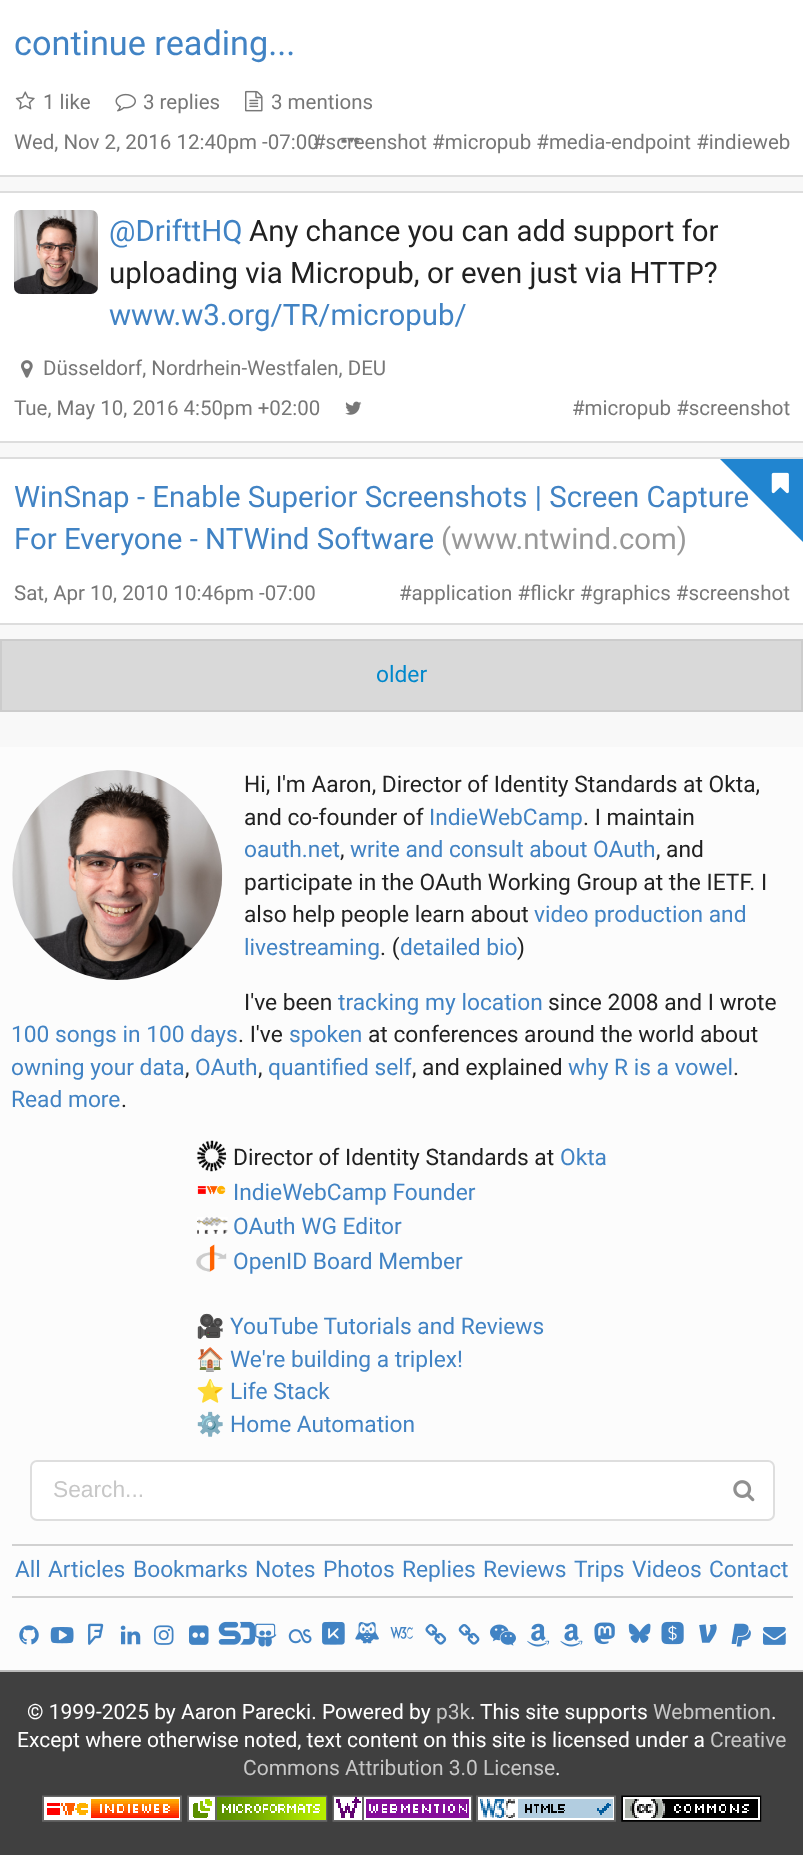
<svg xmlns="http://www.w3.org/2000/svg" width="803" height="1855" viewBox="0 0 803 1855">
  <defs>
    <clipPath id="clip1"><rect x="0" y="459" width="803" height="164"/></clipPath>
  </defs>
  <rect width="100%" height="100%" fill="#f8f8f8"/>
  <rect x="0" y="0" width="803" height="175" fill="#ffffff"/>
  <rect x="0" y="175" width="803" height="2" fill="#dddddd"/>
  <text x="14" y="55" font-family="Roboto" font-size="34.25" fill="#4183c4">continue reading...</text>
  <image x="15" y="91" width="20" height="19" href="img1.png"/>
  <text x="43" y="109" font-family="Roboto" font-size="20.5" fill="#777777">1 like</text>
  <image x="115" y="93" width="21" height="19" href="img2.png"/>
  <text x="143" y="109" font-family="Roboto" font-size="20.5" fill="#777777">3 replies</text>
  <image x="245" y="90" width="18" height="22" href="img3.png"/>
  <text x="271" y="109" font-family="Roboto" font-size="20.5" fill="#777777">3 mentions</text>
  <text x="14" y="149" font-family="Roboto" font-size="20.5" fill="#777777">Wed, Nov 2, 2016 12:40pm -07:00</text>
  <image x="341" y="137" width="19" height="6" href="img4.png"/>
  <text x="313" y="149" font-family="Roboto" font-size="20.5" fill="#777777">#screenshot #micropub #media-endpoint #indieweb</text>
  <rect x="0" y="193" width="803" height="248" fill="#ffffff"/>
  <rect x="0" y="191" width="803" height="2" fill="#dddddd"/>
  <rect x="0" y="441" width="803" height="2" fill="#dddddd"/>
  <image x="14" y="210" width="84" height="84" href="img5.png"/>
  <text x="109" y="241" font-family="Roboto" font-size="29.4" fill="#4183c4">@DrifttHQ</text>
  <text x="249" y="241" font-family="Roboto" font-size="29.4" fill="#212121">Any chance you can add support for</text>
  <text x="109" y="283" font-family="Roboto" font-size="29.4" fill="#212121">uploading via Micropub, or even just via HTTP?</text>
  <text x="109" y="325" font-family="Roboto" font-size="29.4" fill="#4183c4">www.w3.org/TR/micropub/</text>
  <image x="21" y="360" width="12" height="18" href="img6.png"/>
  <text x="43" y="375" font-family="Roboto" font-size="20.5" fill="#777777">Düsseldorf, Nordrhein-Westfalen, DEU</text>
  <text x="14" y="415" font-family="Roboto" font-size="20.5" fill="#777777">Tue, May 10, 2016 4:50pm +02:00</text>
  <image x="345" y="401" width="17" height="14" href="img7.png"/>
  <text x="572" y="415" font-family="Roboto" font-size="20.5" fill="#777777">#micropub #screenshot</text>
  <rect x="0" y="459" width="803" height="164" fill="#ffffff"/>
  <rect x="0" y="457" width="803" height="2" fill="#dddddd"/>
  <rect x="0" y="623" width="803" height="2" fill="#dddddd"/>
  <text x="14" y="507" font-family="Roboto" font-size="29.4" fill="#4183c4">WinSnap - Enable Superior Screenshots | Screen Capture</text>
  <text x="14" y="549" font-family="Roboto" font-size="29.4" fill="#4183c4">For Everyone - NTWind Software</text>
  <text x="441" y="549" font-family="Roboto" font-size="29.4" fill="#999999">(www.ntwind.com)</text>
  <g clip-path="url(#clip1)">
    <path d="M803 458V542L719 458Z" fill="#2185d0"/>
  </g>
  <image x="771" y="472" width="18" height="22" href="img8.png"/>
  <text x="14" y="600" font-family="Roboto" font-size="20.5" fill="#777777">Sat, Apr 10, 2010 10:46pm -07:00</text>
  <text x="399" y="600" font-family="Roboto" font-size="20.5" fill="#777777">#application #flickr #graphics #screenshot</text>
  <rect x="1" y="640" width="801" height="71" fill="#d9d9d9" stroke="#cccccc" stroke-width="2"/>
  <text x="376" y="682" font-family="Roboto" font-size="22.75" fill="#0088cc">older</text>
  <rect x="0" y="747" width="803" height="923" fill="#fcfcfc"/>
  <image x="12" y="770" width="211" height="210" href="img9.png"/>
  <text x="244" y="792" font-family="Roboto" font-size="22.75" fill="#212121">Hi, I'm Aaron, Director of Identity Standards at Okta,</text>
  <text x="244" y="825" font-family="Roboto" font-size="22.75" fill="#212121">and co-founder of</text>
  <text x="429" y="825" font-family="Roboto" font-size="22.75" fill="#4183c4">IndieWebCamp</text>
  <text x="583" y="825" font-family="Roboto" font-size="22.75" fill="#212121">. I maintain</text>
  <text x="244" y="857" font-family="Roboto" font-size="22.75" fill="#4183c4">oauth.net</text>
  <text x="340" y="857" font-family="Roboto" font-size="22.75" fill="#212121">,</text>
  <text x="350" y="857" font-family="Roboto" font-size="22.75" fill="#4183c4">write and consult about OAuth</text>
  <text x="656" y="857" font-family="Roboto" font-size="22.75" fill="#212121">, and</text>
  <text x="244" y="890" font-family="Roboto" font-size="22.75" fill="#212121">participate in the OAuth Working Group at the IETF. I</text>
  <text x="244" y="922" font-family="Roboto" font-size="22.75" fill="#212121">also help people learn about</text>
  <text x="534" y="922" font-family="Roboto" font-size="22.75" fill="#4183c4">video production and</text>
  <text x="244" y="955" font-family="Roboto" font-size="22.75" fill="#4183c4">livestreaming</text>
  <text x="380" y="955" font-family="Roboto" font-size="22.75" fill="#212121">. (</text>
  <text x="400" y="955" font-family="Roboto" font-size="22.75" fill="#4183c4">detailed bio</text>
  <text x="517" y="955" font-family="Roboto" font-size="22.75" fill="#212121">)</text>
  <text x="244" y="1010" font-family="Roboto" font-size="22.75" fill="#212121">I've been</text>
  <text x="338" y="1010" font-family="Roboto" font-size="22.75" fill="#4183c4">tracking my location</text>
  <text x="548" y="1010" font-family="Roboto" font-size="22.75" fill="#212121">since 2008 and I wrote</text>
  <text x="11" y="1042" font-family="Roboto" font-size="22.75" fill="#4183c4">100 songs in 100 days</text>
  <text x="238" y="1042" font-family="Roboto" font-size="22.75" fill="#212121">. I've</text>
  <text x="289" y="1042" font-family="Roboto" font-size="22.75" fill="#4183c4">spoken</text>
  <text x="368" y="1042" font-family="Roboto" font-size="22.75" fill="#212121">at conferences around the world about</text>
  <text x="11" y="1075" font-family="Roboto" font-size="22.75" fill="#4183c4">owning your data</text>
  <text x="185" y="1075" font-family="Roboto" font-size="22.75" fill="#212121">,</text>
  <text x="195" y="1075" font-family="Roboto" font-size="22.75" fill="#4183c4">OAuth</text>
  <text x="258" y="1075" font-family="Roboto" font-size="22.75" fill="#212121">,</text>
  <text x="268" y="1075" font-family="Roboto" font-size="22.75" fill="#4183c4">quantified self</text>
  <text x="412" y="1075" font-family="Roboto" font-size="22.75" fill="#212121">, and explained</text>
  <text x="568" y="1075" font-family="Roboto" font-size="22.75" fill="#4183c4">why R is a vowel</text>
  <text x="733" y="1075" font-family="Roboto" font-size="22.75" fill="#212121">.</text>
  <text x="11" y="1107" font-family="Roboto" font-size="22.75" fill="#4183c4">Read more</text>
  <text x="121" y="1107" font-family="Roboto" font-size="22.75" fill="#212121">.</text>
  <image x="196" y="1140" width="31" height="32" href="img10.png"/>
  <text x="233" y="1165" font-family="Roboto" font-size="22.75" fill="#212121">Director of Identity Standards at</text>
  <text x="560" y="1165" font-family="Roboto" font-size="22.75" fill="#4183c4">Okta</text>
  <image x="197" y="1185" width="29" height="10" href="img11.png"/>
  <text x="233" y="1200" font-family="Roboto" font-size="22.75" fill="#4183c4">IndieWebCamp Founder</text>
  <image x="197" y="1217" width="31" height="17" href="img12.png"/>
  <text x="233" y="1234" font-family="Roboto" font-size="22.75" fill="#4183c4">OAuth WG Editor</text>
  <image x="196" y="1244" width="31" height="28" href="img13.png"/>
  <text x="233" y="1269" font-family="Roboto" font-size="22.75" fill="#4183c4">OpenID Board Member</text>
  <text x="196" y="1334" font-family="Noto Color Emoji" font-size="22.75" fill="#212121">🎥</text>
  <text x="230" y="1334" font-family="Roboto" font-size="22.75" fill="#4183c4">YouTube Tutorials and Reviews</text>
  <text x="196" y="1367" font-family="Noto Color Emoji" font-size="22.75" fill="#212121">🏠</text>
  <text x="230" y="1367" font-family="Roboto" font-size="22.75" fill="#4183c4">We're building a triplex!</text>
  <text x="196" y="1399" font-family="Noto Color Emoji" font-size="22.75" fill="#4183c4">⭐️</text>
  <text x="230" y="1399" font-family="Roboto" font-size="22.75" fill="#4183c4">Life Stack</text>
  <text x="196" y="1432" font-family="Noto Color Emoji" font-size="22.75" fill="#212121">⚙️</text>
  <text x="230" y="1432" font-family="Roboto" font-size="22.75" fill="#4183c4">Home Automation</text>
  <rect x="31" y="1461" width="743" height="59" rx="6" fill="#ffffff" stroke="#dedede" stroke-width="2"/>
  <text x="53" y="1497" font-family="Liberation Sans" font-size="22.75" fill="#c7c7c7">Search...</text>
  <image x="733" y="1480" width="22" height="22" href="img14.png"/>
  <rect x="12" y="1544" width="781" height="2" fill="#d1d1d1"/>
  <rect x="12" y="1596" width="781" height="2" fill="#d1d1d1"/>
  <text x="15" y="1577" font-family="Roboto" font-size="22.75" fill="#4183c4">All</text>
  <text x="48" y="1577" font-family="Roboto" font-size="22.75" fill="#4183c4">Articles</text>
  <text x="133" y="1577" font-family="Roboto" font-size="22.75" fill="#4183c4">Bookmarks</text>
  <text x="255" y="1577" font-family="Roboto" font-size="22.75" fill="#4183c4">Notes</text>
  <text x="323" y="1577" font-family="Roboto" font-size="22.75" fill="#4183c4">Photos</text>
  <text x="402" y="1577" font-family="Roboto" font-size="22.75" fill="#4183c4">Replies</text>
  <text x="483" y="1577" font-family="Roboto" font-size="22.75" fill="#4183c4">Reviews</text>
  <text x="574" y="1577" font-family="Roboto" font-size="22.75" fill="#4183c4">Trips</text>
  <text x="632" y="1577" font-family="Roboto" font-size="22.75" fill="#4183c4">Videos</text>
  <text x="709" y="1577" font-family="Roboto" font-size="22.75" fill="#4183c4">Contact</text>
  <image x="19" y="1625" width="20" height="20" href="img15.png"/>
  <image x="50" y="1627" width="24" height="17" href="img16.png"/>
  <image x="88" y="1623" width="16" height="22" href="img17.png"/>
  <image x="120" y="1625" width="21" height="20" href="img18.png"/>
  <image x="154" y="1625" width="20" height="20" href="img19.png"/>
  <image x="189" y="1625" width="20" height="20" href="img20.png"/>
  <image x="218" y="1621" width="38" height="24" href="img21.png"/>
  <image x="255" y="1623" width="22" height="24" href="img22.png"/>
  <image x="288" y="1629" width="24" height="15" href="img23.png"/>
  <image x="322" y="1621" width="23" height="24" href="img24.png"/>
  <image x="355" y="1622" width="24" height="22" href="img25.png"/>
  <image x="390" y="1627" width="23" height="12" href="img26.png"/>
  <image x="425" y="1624" width="22" height="21" href="img27.png"/>
  <image x="458" y="1624" width="22" height="21" href="img28.png"/>
  <image x="490" y="1624" width="26" height="22" href="img29.png"/>
  <image x="527" y="1623" width="23" height="24" href="img30.png"/>
  <image x="560" y="1623" width="23" height="24" href="img31.png"/>
  <image x="594" y="1622" width="21" height="23" href="img32.png"/>
  <image x="628" y="1623" width="23" height="20" href="img33.png"/>
  <image x="661" y="1621" width="23" height="24" href="img34.png"/>
  <image x="699" y="1624" width="18" height="19" href="img35.png"/>
  <image x="731" y="1623" width="20" height="24" href="img36.png"/>
  <image x="763" y="1627" width="23" height="18" href="img37.png"/>
  <rect x="0" y="1672" width="803" height="183" fill="#404040"/>
  <rect x="0" y="1670" width="803" height="2" fill="#bbbbbb"/>
  <text x="27" y="1719" font-family="Roboto" font-size="21" fill="#ffffff">© 1999-2025 by Aaron Parecki. Powered by</text>
  <text x="436" y="1719" font-family="Roboto" font-size="21" fill="#c7c7c7">p3k</text>
  <text x="470" y="1719" font-family="Roboto" font-size="21" fill="#ffffff">.</text>
  <text x="480" y="1719" font-family="Roboto" font-size="21" fill="#ffffff">This site supports</text>
  <text x="653" y="1719" font-family="Roboto" font-size="21" fill="#c7c7c7">Webmention</text>
  <text x="771" y="1719" font-family="Roboto" font-size="21" fill="#ffffff">.</text>
  <text x="17" y="1747" font-family="Roboto" font-size="21" fill="#ffffff">Except where otherwise noted, text content on this site is licensed under a</text>
  <text x="710" y="1747" font-family="Roboto" font-size="21" fill="#c7c7c7">Creative</text>
  <text x="243" y="1775" font-family="Roboto" font-size="21" fill="#c7c7c7">Commons Attribution 3.0 License</text>
  <text x="555" y="1775" font-family="Roboto" font-size="21" fill="#ffffff">.</text>
  <image x="42" y="1795" width="140" height="27" href="img38.png"/>
  <image x="187" y="1795" width="141" height="27" href="img39.png"/>
  <image x="332" y="1795" width="141" height="27" href="img40.png"/>
  <image x="476" y="1795" width="140" height="27" href="img41.png"/>
  <image x="621" y="1795" width="141" height="27" href="img42.png"/>
</svg>
